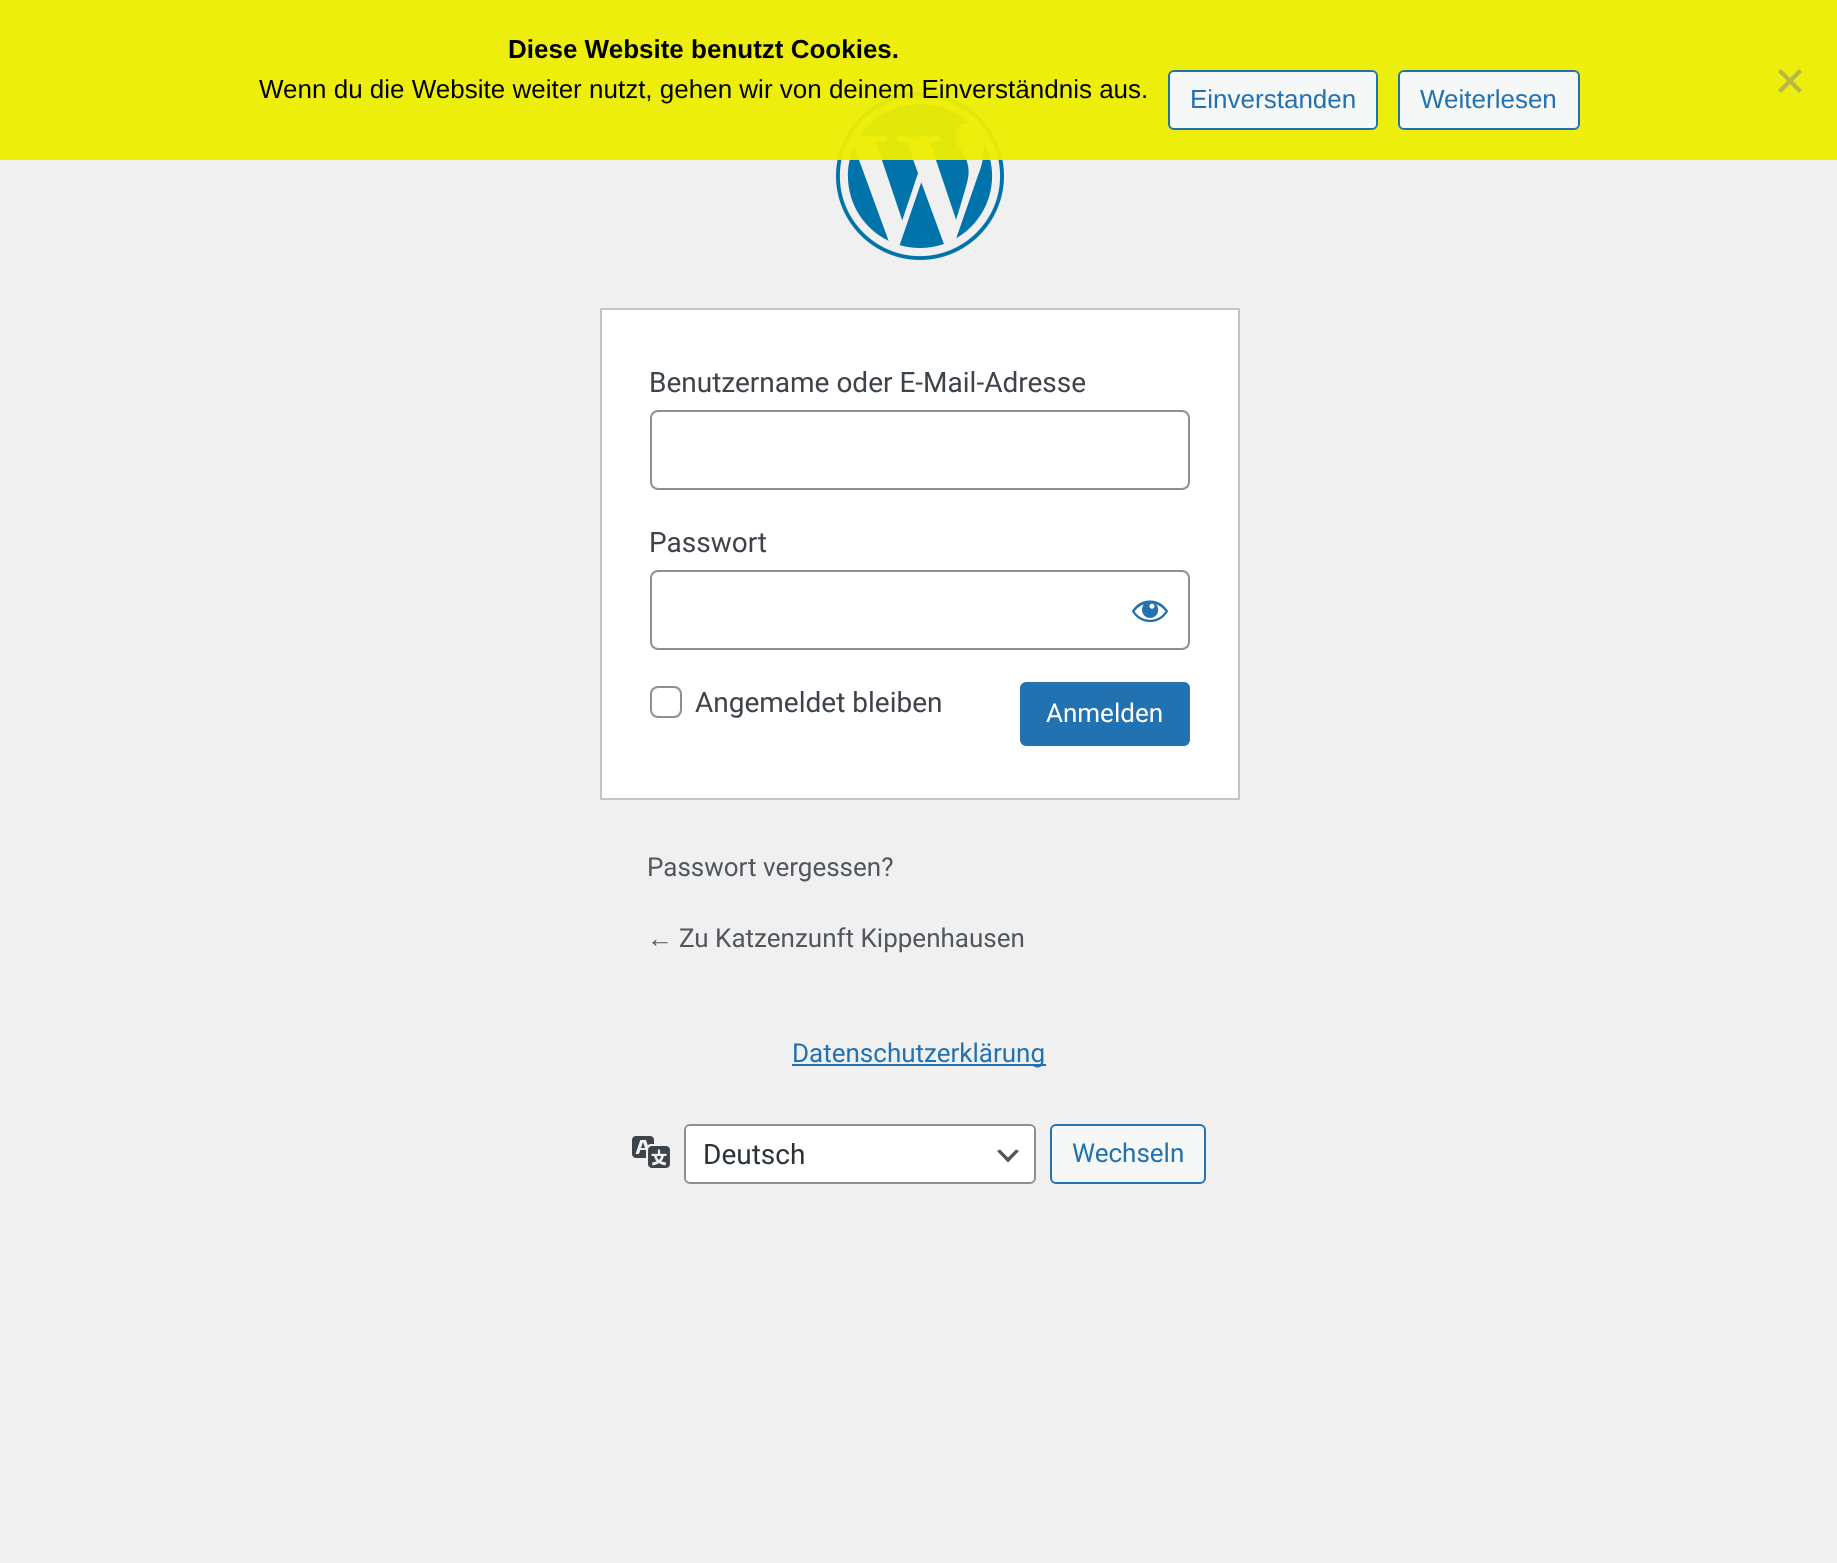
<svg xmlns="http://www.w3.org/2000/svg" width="1837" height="1563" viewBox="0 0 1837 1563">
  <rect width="100%" height="100%" fill="#f0f0f1"/>
  <image x="836" y="92" width="168" height="168" href="img1.png"/>
  <rect x="0" y="0" width="1837" height="160" fill="#eded00" fill-opacity="0.95"/>
  <text x="508" y="58" font-family="Liberation Sans" font-size="26" font-weight="bold" fill="#000000">Diese Website benutzt Cookies.</text>
  <text x="259" y="98" font-family="Liberation Sans" font-size="26" fill="#000000">Wenn du die Website weiter nutzt, gehen wir von deinem Einverständnis aus.</text>
  <path d="M1799 69L1802 72L1781 93L1778 90Z" fill="#b7b746"/>
  <path d="M1778 72L1781 69L1802 90L1799 93Z" fill="#b7b746"/>
  <rect x="1169" y="71" width="208" height="58" rx="5" fill="#f6f7f7" stroke="#2271b1" stroke-width="2"/>
  <text x="1190" y="108" font-family="Liberation Sans" font-size="26" fill="#2271b1">Einverstanden</text>
  <rect x="1399" y="71" width="180" height="58" rx="5" fill="#f6f7f7" stroke="#2271b1" stroke-width="2"/>
  <text x="1420" y="108" font-family="Liberation Sans" font-size="26" fill="#2271b1">Weiterlesen</text>
  <rect x="601" y="309" width="638" height="490" fill="#ffffff" stroke="#c3c4c7" stroke-width="2"/>
  <text x="649" y="392" font-family="Roboto" font-size="28" fill="#3c434a">Benutzername oder E-Mail-Adresse</text>
  <rect x="651" y="411" width="538" height="78" rx="7" fill="none" stroke="#8c8f94" stroke-width="2"/>
  <text x="649" y="552" font-family="Roboto" font-size="28" fill="#3c434a">Passwort</text>
  <rect x="651" y="571" width="538" height="78" rx="7" fill="none" stroke="#8c8f94" stroke-width="2"/>
  <image x="1131" y="600" width="38" height="23" href="img2.png"/>
  <rect x="651" y="687" width="30" height="30" rx="7" fill="none" stroke="#8c8f94" stroke-width="2"/>
  <text x="695" y="712" font-family="Roboto" font-size="28" fill="#3c434a">Angemeldet bleiben</text>
  <rect x="1021" y="683" width="168" height="62" rx="5" fill="#2271b1" stroke="#2271b1" stroke-width="2"/>
  <text x="1046" y="722" font-family="Roboto" font-size="26" fill="#ffffff">Anmelden</text>
  <text x="647" y="876" font-family="Roboto" font-size="26" fill="#50575e">Passwort vergessen?</text>
  <text x="647" y="947" font-family="Liberation Sans" font-size="26" fill="#50575e">←</text>
  <text x="679" y="947" font-family="Roboto" font-size="26" fill="#50575e">Zu Katzenzunft Kippenhausen</text>
  <rect x="792" y="1064" width="254" height="2" fill="#2271b1"/>
  <text x="792" y="1062" font-family="Roboto" font-size="26" fill="#2271b1">Datenschutzerklärung</text>
  <image x="632" y="1136" width="38" height="32" href="img3.png"/>
  <rect x="684" y="1124" width="352" height="60" rx="6" fill="#ffffff"/>
  <path d="M1000 1149.5L1008 1157.5L1016 1149.5L1019 1151L1008 1162.5L997 1151Z" fill="#555555"/>
  <rect x="685" y="1125" width="350" height="58" rx="5" fill="none" stroke="#8c8f94" stroke-width="2"/>
  <text x="703" y="1164" font-family="Roboto" font-size="28" fill="#2c3338">Deutsch</text>
  <rect x="1051" y="1125" width="154" height="58" rx="5" fill="#f6f7f7" stroke="#2271b1" stroke-width="2"/>
  <text x="1072" y="1162" font-family="Roboto" font-size="26" fill="#2271b1">Wechseln</text>
</svg>
